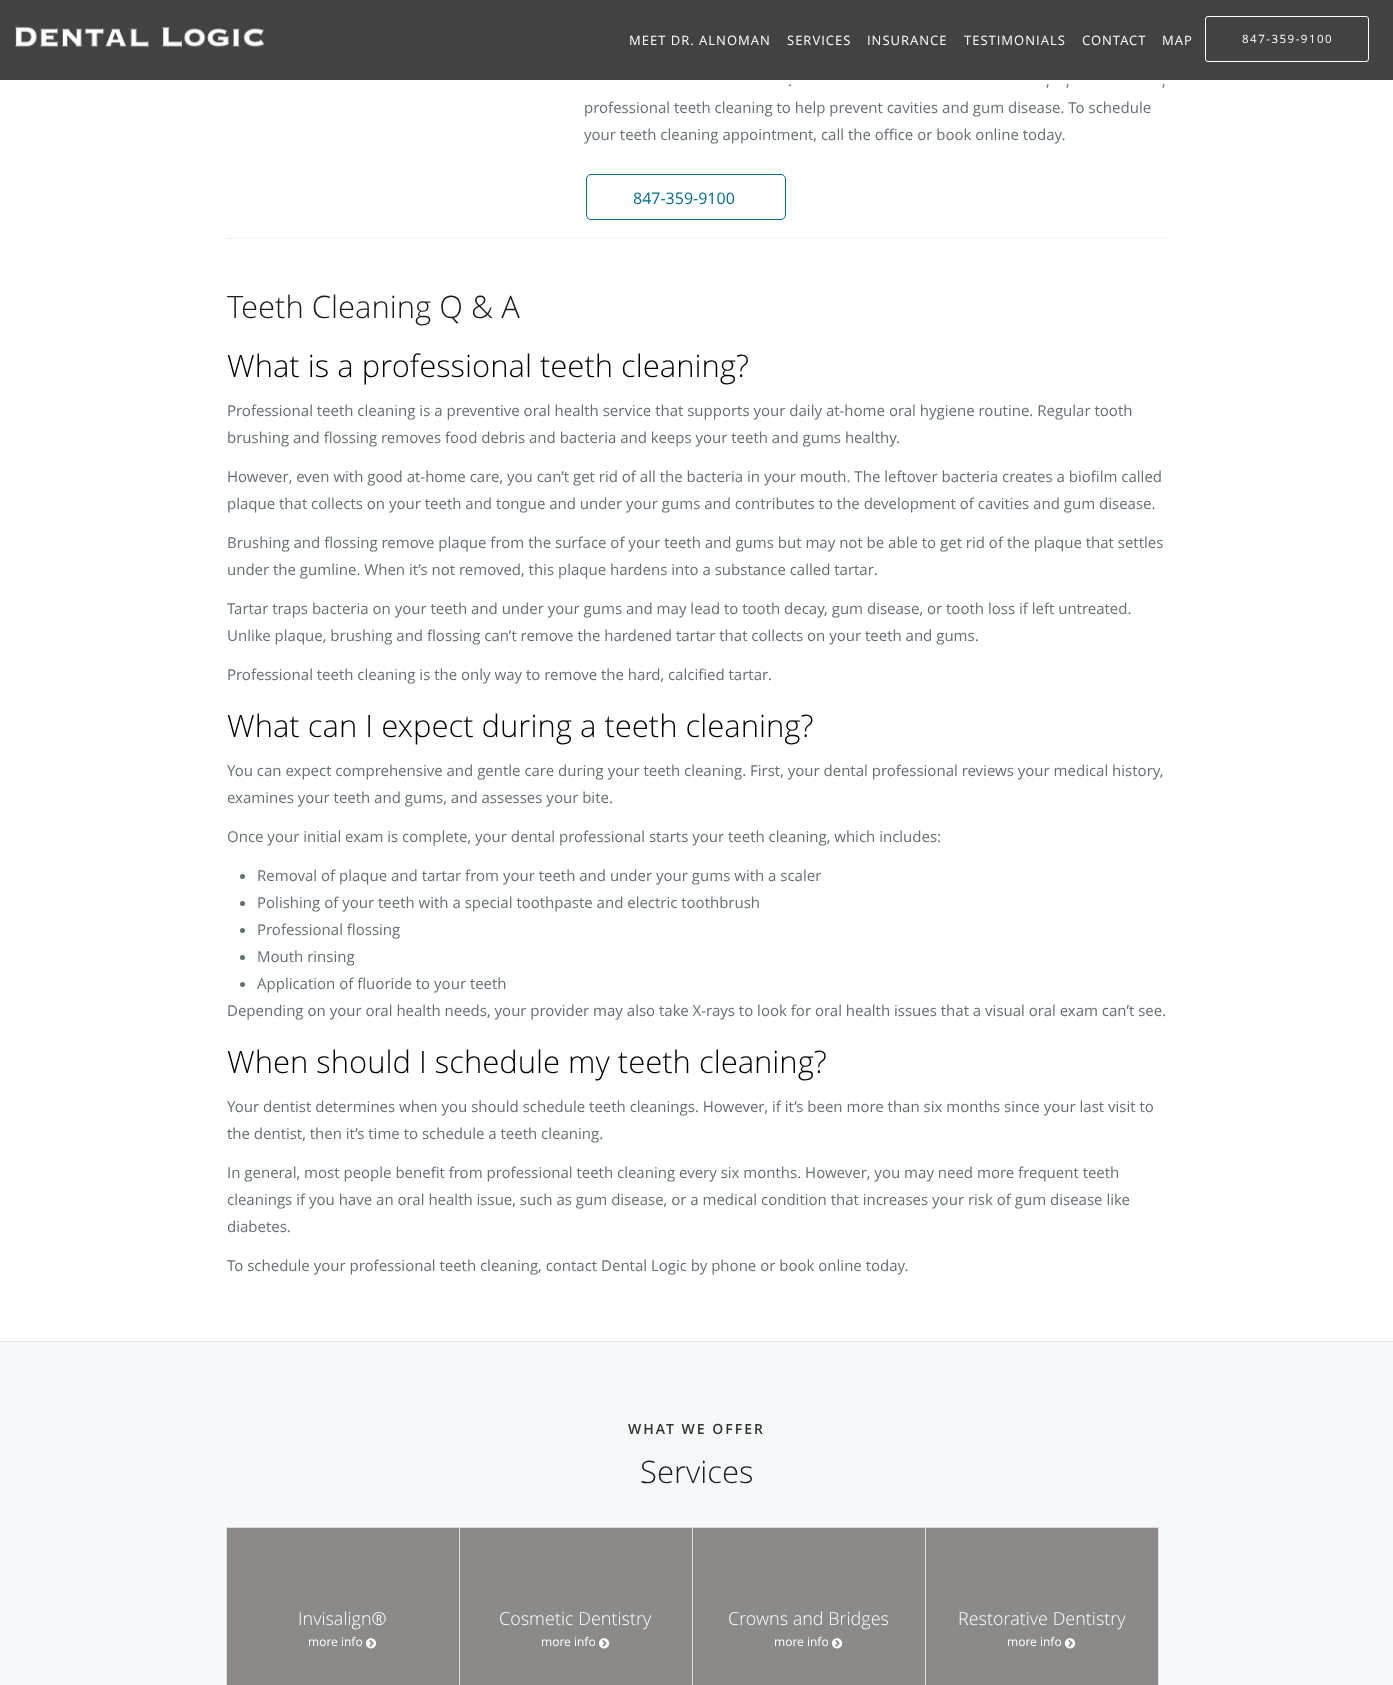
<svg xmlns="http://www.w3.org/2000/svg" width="1393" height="1685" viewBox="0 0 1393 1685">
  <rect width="100%" height="100%" fill="#ffffff"/>
  <rect x="0" y="0" width="1393" height="80" fill="#424242"/>
  <image x="15" y="26" width="250" height="22" href="img1.png"/>
  <text x="629" y="45" font-family="Open Sans" font-size="13" letter-spacing="1" fill="#ffffff">MEET DR. ALNOMAN</text>
  <text x="787" y="45" font-family="Open Sans" font-size="13" letter-spacing="1" fill="#ffffff">SERVICES</text>
  <text x="867" y="45" font-family="Open Sans" font-size="13" letter-spacing="1" fill="#ffffff">INSURANCE</text>
  <text x="964" y="45" font-family="Open Sans" font-size="13" letter-spacing="1" fill="#ffffff">TESTIMONIALS</text>
  <text x="1082" y="45" font-family="Open Sans" font-size="13" letter-spacing="1" fill="#ffffff">CONTACT</text>
  <text x="1162" y="45" font-family="Open Sans" font-size="13" letter-spacing="1" fill="#ffffff">MAP</text>
  <rect x="1205.5" y="16.5" width="163" height="45" rx="2.5" fill="none" stroke="#ffffff"/>
  <text x="1242" y="43" font-family="Open Sans" font-size="11.5" letter-spacing="1.5" fill="#ffffff">847-359-9100</text>
  <rect x="227" y="238" width="940" height="1" fill="#f0f0f0"/>
  <text x="788" y="86" font-family="Open Sans" font-size="15" fill="#656f72">.</text>
  <text x="1046" y="86" font-family="Open Sans" font-size="15" fill="#656f72">,</text>
  <text x="1066" y="86" font-family="Open Sans" font-size="15" fill="#656f72">,</text>
  <text x="1162" y="86" font-family="Open Sans" font-size="15" fill="#656f72">,</text>
  <text x="584" y="113" font-family="Open Sans" font-size="15" fill="#656f72">professional teeth cleaning to help prevent cavities and gum disease. To schedule</text>
  <text x="584" y="140" font-family="Open Sans" font-size="15" fill="#656f72">your teeth cleaning appointment, call the office or book online today.</text>
  <rect x="586.5" y="174.5" width="199" height="45" rx="4.5" fill="none" stroke="#006b8d"/>
  <text x="633" y="204" font-family="Open Sans" font-size="16" fill="#006b8d">847-359-9100</text>
  <rect x="0" y="1341" width="1393" height="1" fill="#dfe5e8"/>
  <text x="227" y="318" font-family="Open Sans" font-size="31" font-weight="300" fill="#191b1f">Teeth Cleaning Q &amp; A</text>
  <text x="227" y="377" font-family="Open Sans" font-size="31" font-weight="300" fill="#000000">What is a professional teeth cleaning?</text>
  <text x="227" y="416" font-family="Open Sans" font-size="15" fill="#656f72">Professional teeth cleaning is a preventive oral health service that supports your daily at-home oral hygiene routine. Regular tooth</text>
  <text x="227" y="443" font-family="Open Sans" font-size="15" fill="#656f72">brushing and flossing removes food debris and bacteria and keeps your teeth and gums healthy.</text>
  <text x="227" y="482" font-family="Open Sans" font-size="15" fill="#656f72">However, even with good at-home care, you can’t get rid of all the bacteria in your mouth. The leftover bacteria creates a biofilm called</text>
  <text x="227" y="509" font-family="Open Sans" font-size="15" fill="#656f72">plaque that collects on your teeth and tongue and under your gums and contributes to the development of cavities and gum disease.</text>
  <text x="227" y="548" font-family="Open Sans" font-size="15" fill="#656f72">Brushing and flossing remove plaque from the surface of your teeth and gums but may not be able to get rid of the plaque that settles</text>
  <text x="227" y="575" font-family="Open Sans" font-size="15" fill="#656f72">under the gumline. When it’s not removed, this plaque hardens into a substance called tartar.</text>
  <text x="227" y="614" font-family="Open Sans" font-size="15" fill="#656f72">Tartar traps bacteria on your teeth and under your gums and may lead to tooth decay, gum disease, or tooth loss if left untreated.</text>
  <text x="227" y="641" font-family="Open Sans" font-size="15" fill="#656f72">Unlike plaque, brushing and flossing can’t remove the hardened tartar that collects on your teeth and gums.</text>
  <text x="227" y="680" font-family="Open Sans" font-size="15" fill="#656f72">Professional teeth cleaning is the only way to remove the hard, calcified tartar.</text>
  <text x="227" y="737" font-family="Open Sans" font-size="31" font-weight="300" fill="#000000">What can I expect during a teeth cleaning?</text>
  <text x="227" y="776" font-family="Open Sans" font-size="15" fill="#656f72">You can expect comprehensive and gentle care during your teeth cleaning. First, your dental professional reviews your medical history,</text>
  <text x="227" y="803" font-family="Open Sans" font-size="15" fill="#656f72">examines your teeth and gums, and assesses your bite.</text>
  <text x="227" y="842" font-family="Open Sans" font-size="15" fill="#656f72">Once your initial exam is complete, your dental professional starts your teeth cleaning, which includes:</text>
  <circle cx="242.5" cy="876.5" r="2.5" fill="#656f72"/>
  <text x="257" y="881" font-family="Open Sans" font-size="15" fill="#656f72">Removal of plaque and tartar from your teeth and under your gums with a scaler</text>
  <circle cx="242.5" cy="903.5" r="2.5" fill="#656f72"/>
  <text x="257" y="908" font-family="Open Sans" font-size="15" fill="#656f72">Polishing of your teeth with a special toothpaste and electric toothbrush</text>
  <circle cx="242.5" cy="930.5" r="2.5" fill="#656f72"/>
  <text x="257" y="935" font-family="Open Sans" font-size="15" fill="#656f72">Professional flossing</text>
  <circle cx="242.5" cy="957.5" r="2.5" fill="#656f72"/>
  <text x="257" y="962" font-family="Open Sans" font-size="15" fill="#656f72">Mouth rinsing</text>
  <circle cx="242.5" cy="984.5" r="2.5" fill="#656f72"/>
  <text x="257" y="989" font-family="Open Sans" font-size="15" fill="#656f72">Application of fluoride to your teeth</text>
  <text x="227" y="1016" font-family="Open Sans" font-size="15" fill="#656f72">Depending on your oral health needs, your provider may also take X-rays to look for oral health issues that a visual oral exam can’t see.</text>
  <text x="227" y="1073" font-family="Open Sans" font-size="31" font-weight="300" fill="#000000">When should I schedule my teeth cleaning?</text>
  <text x="227" y="1112" font-family="Open Sans" font-size="15" fill="#656f72">Your dentist determines when you should schedule teeth cleanings. However, if it’s been more than six months since your last visit to</text>
  <text x="227" y="1139" font-family="Open Sans" font-size="15" fill="#656f72">the dentist, then it’s time to schedule a teeth cleaning.</text>
  <text x="227" y="1178" font-family="Open Sans" font-size="15" fill="#656f72">In general, most people benefit from professional teeth cleaning every six months. However, you may need more frequent teeth</text>
  <text x="227" y="1205" font-family="Open Sans" font-size="15" fill="#656f72">cleanings if you have an oral health issue, such as gum disease, or a medical condition that increases your risk of gum disease like</text>
  <text x="227" y="1232" font-family="Open Sans" font-size="15" fill="#656f72">diabetes.</text>
  <text x="227" y="1271" font-family="Open Sans" font-size="15" fill="#656f72">To schedule your professional teeth cleaning, contact Dental Logic by phone or book online today.</text>
  <rect x="0" y="1342" width="1393" height="343" fill="#f5f9f9"/>
  <text x="628" y="1434" font-family="Open Sans" font-size="14" font-weight="600" letter-spacing="2" fill="#333333">WHAT WE OFFER</text>
  <text x="640" y="1483" font-family="Open Sans" font-size="31" font-weight="300" fill="#191b1f">Services</text>
  <rect x="226.5" y="1527.5" width="233" height="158" fill="none" stroke="#d7dfe2"/>
  <rect x="227" y="1528" width="232" height="157" fill="#8b8a88"/>
  <text x="298" y="1625" font-family="Open Sans" font-size="18" font-weight="300" fill="#ffffff">Invisalign®</text>
  <text x="308" y="1646" font-family="Open Sans" font-size="12" fill="#ffffff">more info</text>
  <image x="365" y="1638" width="12" height="11" href="img2.png"/>
  <rect x="459.5" y="1527.5" width="233" height="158" fill="none" stroke="#d7dfe2"/>
  <rect x="460" y="1528" width="232" height="157" fill="#8b8a88"/>
  <text x="499" y="1625" font-family="Open Sans" font-size="18" font-weight="300" fill="#ffffff">Cosmetic Dentistry</text>
  <text x="541" y="1646" font-family="Open Sans" font-size="12" fill="#ffffff">more info</text>
  <image x="598" y="1638" width="12" height="11" href="img2.png"/>
  <rect x="692.5" y="1527.5" width="233" height="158" fill="none" stroke="#d7dfe2"/>
  <rect x="693" y="1528" width="232" height="157" fill="#8b8a88"/>
  <text x="728" y="1625" font-family="Open Sans" font-size="18" font-weight="300" fill="#ffffff">Crowns and Bridges</text>
  <text x="774" y="1646" font-family="Open Sans" font-size="12" fill="#ffffff">more info</text>
  <image x="831" y="1638" width="12" height="11" href="img2.png"/>
  <rect x="925.5" y="1527.5" width="233" height="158" fill="none" stroke="#d7dfe2"/>
  <rect x="926" y="1528" width="232" height="157" fill="#8b8a88"/>
  <text x="958" y="1625" font-family="Open Sans" font-size="18" font-weight="300" fill="#ffffff">Restorative Dentistry</text>
  <text x="1007" y="1646" font-family="Open Sans" font-size="12" fill="#ffffff">more info</text>
  <image x="1064" y="1638" width="12" height="11" href="img2.png"/>
</svg>
